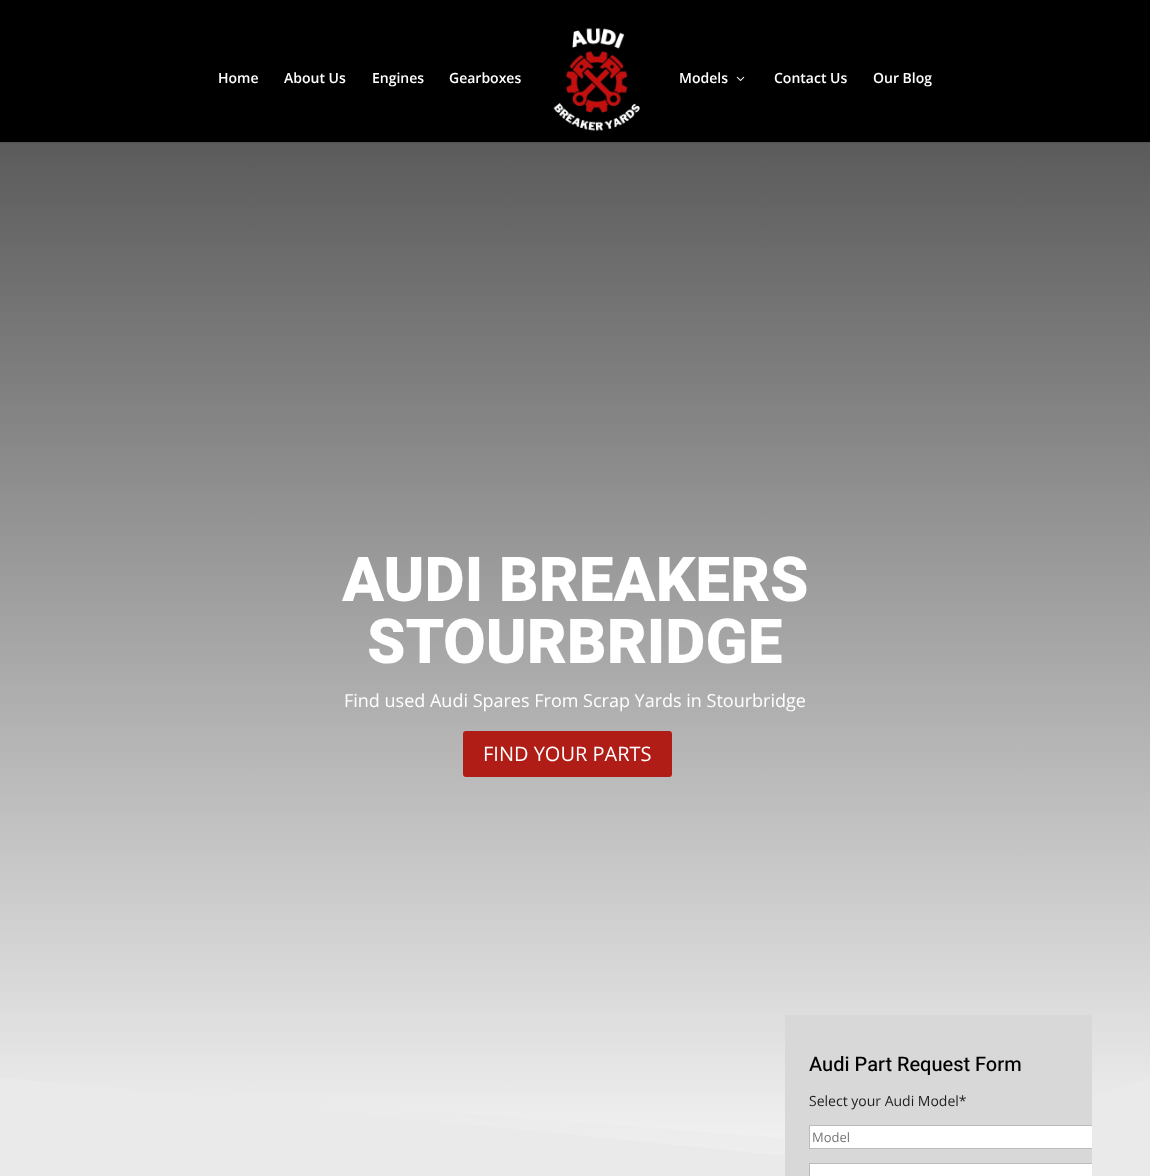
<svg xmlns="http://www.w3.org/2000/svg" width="1150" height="1176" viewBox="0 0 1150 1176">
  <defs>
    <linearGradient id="g1" gradientUnits="userSpaceOnUse" x1="575" y1="135" x2="575" y2="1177"><stop offset="0" stop-color="#5a5a5a"/><stop offset="1" stop-color="#f6f6f6"/></linearGradient>
    <clipPath id="clip1"><rect x="785" y="1015" width="307" height="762"/></clipPath>
  </defs>
  <rect width="100%" height="100%" fill="#ffffff"/>
  <rect x="0" y="142" width="1150" height="1" fill="#525252"/>
  <rect x="0" y="0" width="1150" height="142" fill="#000000"/>
  <text x="218" y="83" font-family="Open Sans" font-size="14" font-weight="600" fill="#ffffff">Home</text>
  <text x="284" y="83" font-family="Open Sans" font-size="14" font-weight="600" fill="#ffffff">About Us</text>
  <text x="372" y="83" font-family="Open Sans" font-size="14" font-weight="600" fill="#ffffff">Engines</text>
  <text x="449" y="83" font-family="Open Sans" font-size="14" font-weight="600" fill="#ffffff">Gearboxes</text>
  <image x="553" y="28" width="87" height="103" href="img1.png"/>
  <text x="679" y="83" font-family="Open Sans" font-size="14" font-weight="600" fill="#ffffff">Models</text>
  <image x="736" y="76" width="9" height="5" href="img2.png"/>
  <text x="774" y="83" font-family="Open Sans" font-size="14" font-weight="600" fill="#ffffff">Contact Us</text>
  <text x="873" y="83" font-family="Open Sans" font-size="14" font-weight="600" fill="#ffffff">Our Blog</text>
  <rect x="0" y="143" width="1150" height="1013" fill="url(#g1)"/>
  <text x="342" y="601" font-family="Heebo" font-size="62" font-weight="800" fill="#ffffff">AUDI BREAKERS</text>
  <text x="367" y="663" font-family="Heebo" font-size="62" font-weight="800" fill="#ffffff">STOURBRIDGE</text>
  <text x="344" y="707" font-family="Open Sans" font-size="18" fill="#ffffff">Find used Audi Spares From Scrap Yards in Stourbridge</text>
  <rect x="463" y="731" width="209" height="46" rx="3" fill="#b01c16"/>
  <text x="483" y="761" font-family="Open Sans" font-size="20" fill="#ffffff">FIND YOUR PARTS</text>
  <path d="M1150 1078L911 1143C902 1146 893 1147 883 1146L0 1078V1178H1150Z" fill="#eaeaea" fill-opacity="0.5"/>
  <path d="M1150 1078L915 1161C904 1165 891 1166 879 1165L0 1078V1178H1150Z" fill="#eaeaea"/>
  <rect x="785" y="1015" width="307" height="161" fill="#d8d8d8"/>
  <text x="809" y="1071" font-family="Heebo" font-size="20" font-weight="500" fill="#000000">Audi Part Request Form</text>
  <text x="809" y="1106" font-family="Open Sans" font-size="14" fill="#1e1e1e">Select your Audi Model*</text>
  <rect x="810" y="1126" width="282" height="22" fill="#ffffff"/>
  <g clip-path="url(#clip1)">
    <rect x="809.5" y="1125.5" width="297" height="23" fill="none" stroke="#bbbbbb"/>
  </g>
  <text x="812" y="1142" font-family="Open Sans" font-size="13" fill="#757575">Model</text>
  <rect x="810" y="1164" width="282" height="12" fill="#ffffff"/>
  <g clip-path="url(#clip1)">
    <rect x="809.5" y="1163.5" width="297" height="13" fill="none" stroke="#bbbbbb"/>
  </g>
</svg>
